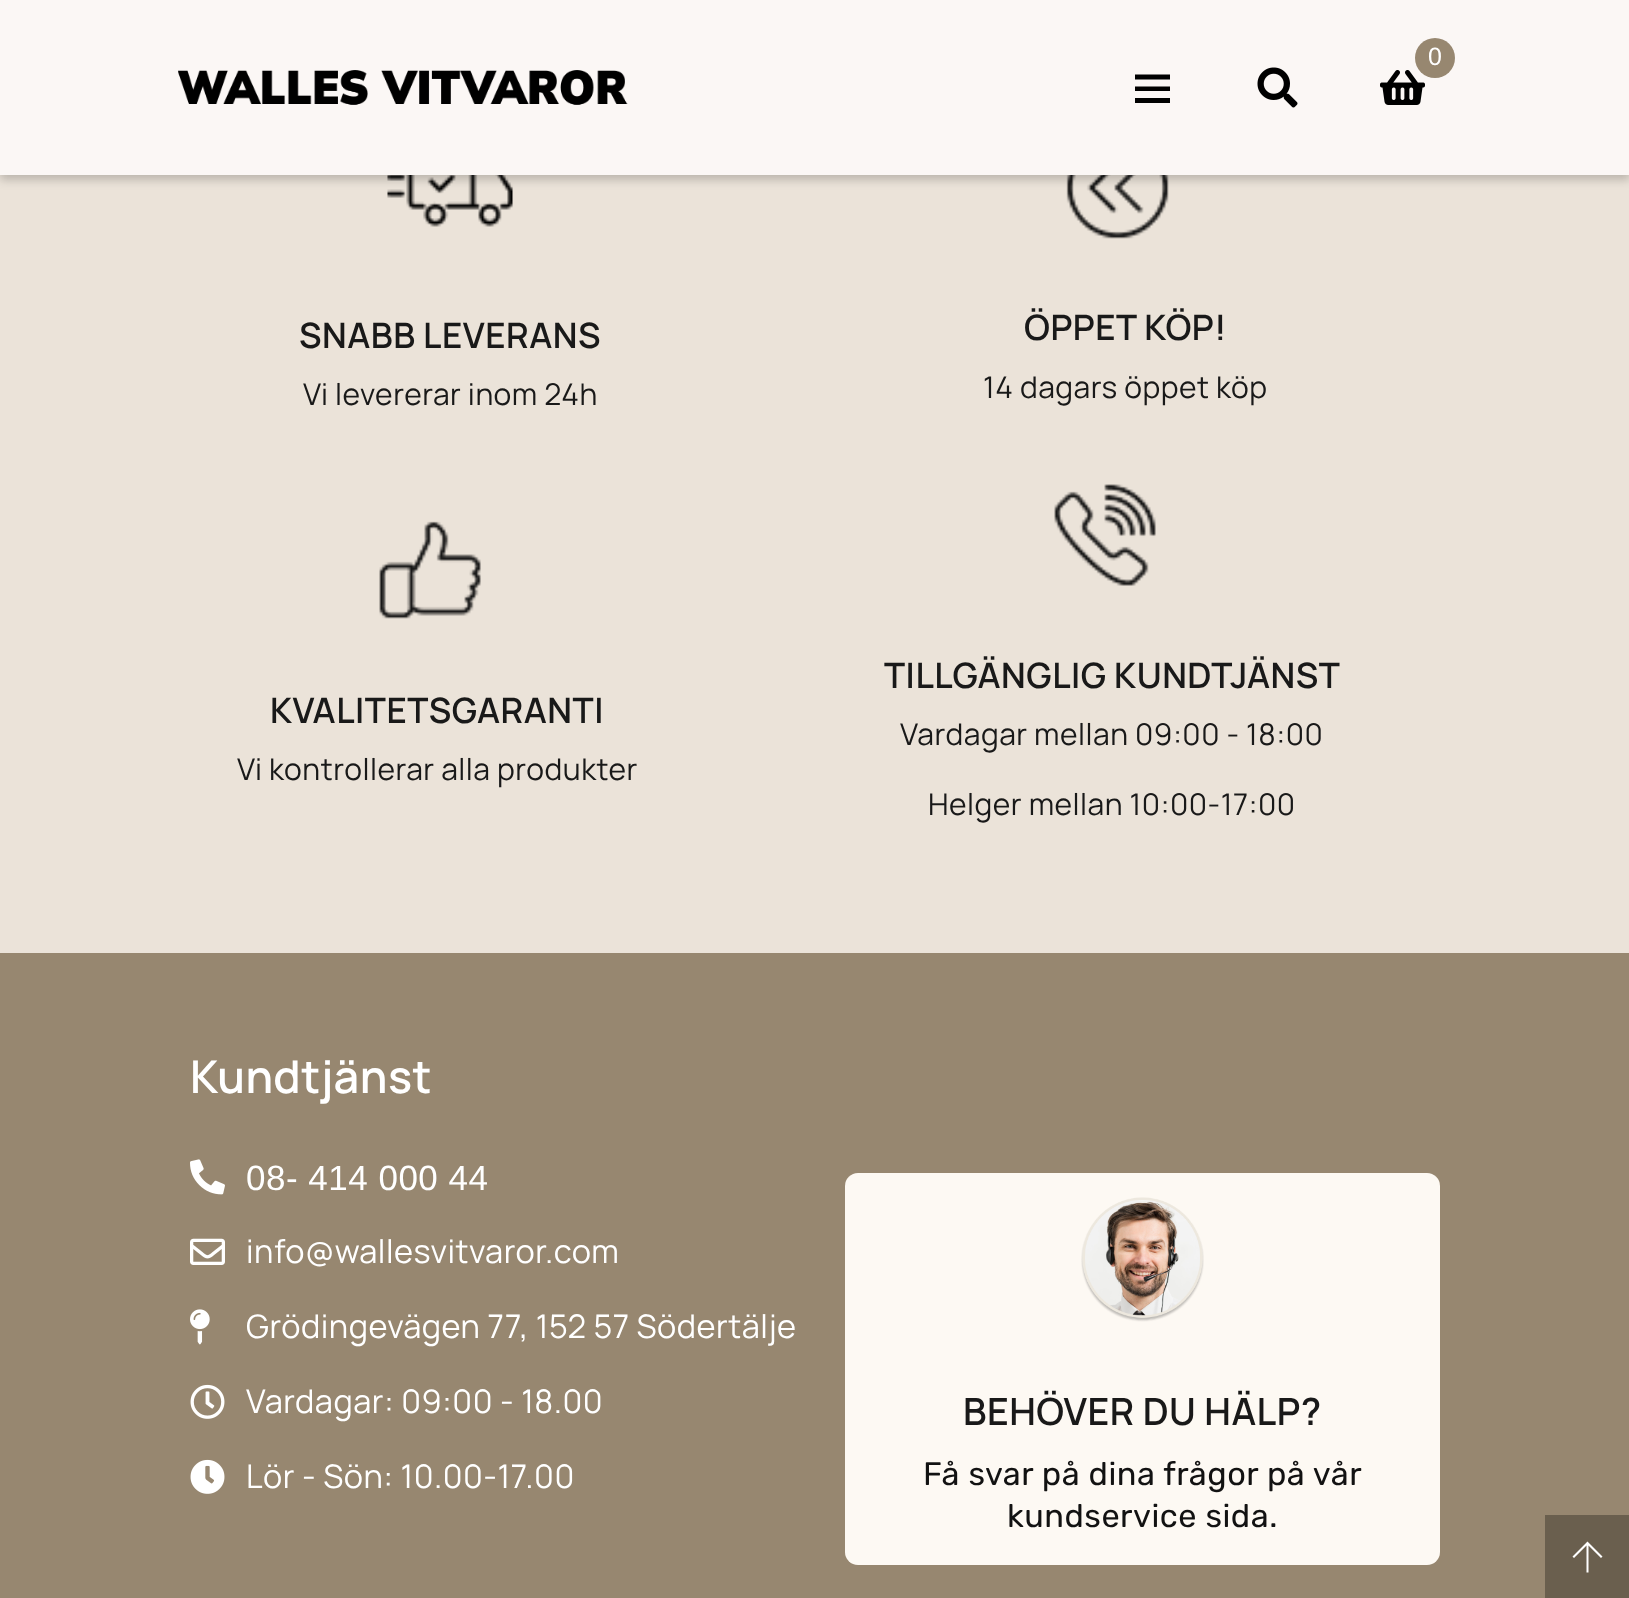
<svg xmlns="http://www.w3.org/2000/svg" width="1629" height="1598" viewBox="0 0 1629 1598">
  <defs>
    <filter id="blur1" x="-50%" y="-200%" width="200%" height="500%"><feGaussianBlur stdDeviation="5"/></filter>
  </defs>
  <rect width="100%" height="100%" fill="#ebe3d9"/>
  <image x="387" y="175" width="126" height="52" href="img4.png"/>
  <image x="1066" y="175" width="103" height="64" href="img5.png"/>
  <rect x="0" y="5" width="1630" height="175" fill="#000000" fill-opacity="0.2" filter="url(#blur1)"/>
  <rect x="0" y="0" width="1629" height="175" fill="#fbf7f5"/>
  <image x="1380" y="70" width="45" height="35" href="img1.png"/>
  <circle cx="1435" cy="58" r="20" fill="#978770"/>
  <text x="1428" y="65" font-family="Liberation Sans" font-size="25" fill="#ffffff">0</text>
  <path d="M1170 74.5V79.5H1135V74.5ZM1135 91H1170V86.5H1135ZM1135 103H1170V98H1135Z" fill="#000000"/>
  <image x="1257" y="67" width="41" height="41" href="img2.png"/>
  <image x="178" y="70" width="450" height="35" href="img3.png"/>
  <text x="299" y="348" font-family="Manrope" font-size="35" font-weight="600" letter-spacing="0.5" fill="#191919">SNABB LEVERANS</text>
  <text x="303" y="405" font-family="Manrope" font-size="30" letter-spacing="0.5" fill="#191919">Vi levererar inom 24h</text>
  <text x="1024" y="340" font-family="Manrope" font-size="35" font-weight="600" letter-spacing="0.5" fill="#191919">ÖPPET KÖP!</text>
  <text x="983" y="398" font-family="Manrope" font-size="30" letter-spacing="0.5" fill="#191919">14 dagars öppet köp</text>
  <image x="379" y="521" width="102" height="98" href="img6.png"/>
  <text x="270" y="723" font-family="Manrope" font-size="35" font-weight="600" letter-spacing="0.5" fill="#191919">KVALITETSGARANTI</text>
  <text x="237" y="780" font-family="Manrope" font-size="30" letter-spacing="0.5" fill="#191919">Vi kontrollerar alla produkter</text>
  <image x="1054" y="484" width="102" height="102" href="img7.png"/>
  <text x="884" y="688" font-family="Manrope" font-size="35" font-weight="600" letter-spacing="0.5" fill="#191919">TILLGÄNGLIG KUNDTJÄNST</text>
  <text x="900" y="745" font-family="Manrope" font-size="30" letter-spacing="0.5" fill="#191919">Vardagar mellan 09:00 - 18:00</text>
  <text x="928" y="815" font-family="Manrope" font-size="30" letter-spacing="0.5" fill="#191919">Helger mellan 10:00-17:00</text>
  <rect x="0" y="953" width="1629" height="645" fill="#978770"/>
  <text x="190" y="1093" font-family="Manrope" font-size="45" font-weight="600" letter-spacing="0.5" fill="#ffffff">Kundtjänst</text>
  <image x="190" y="1159" width="35" height="36" href="img8.png"/>
  <text x="246" y="1190" font-family="Liberation Sans" font-size="35" letter-spacing="0.5" fill="#ffffff">08- 414 000 44</text>
  <image x="190" y="1238" width="35" height="27" href="img9.png"/>
  <text x="246" y="1263" font-family="Manrope" font-size="32.5" letter-spacing="0.5" fill="#ffffff">info@wallesvitvaror.com</text>
  <image x="190" y="1309" width="20" height="36" href="img10.png"/>
  <text x="246" y="1338" font-family="Manrope" font-size="32.5" letter-spacing="0.5" fill="#ffffff">Grödingevägen 77, 152 57 Södertälje</text>
  <image x="190" y="1384" width="35" height="35" href="img11.png"/>
  <text x="246" y="1413" font-family="Manrope" font-size="32.5" letter-spacing="0.5" fill="#ffffff">Vardagar: 09:00 - 18.00</text>
  <image x="190" y="1459" width="35" height="35" href="img12.png"/>
  <text x="246" y="1488" font-family="Manrope" font-size="32.5" letter-spacing="0.5" fill="#ffffff">Lör - Sön: 10.00-17.00</text>
  <rect x="845" y="1173" width="595" height="392" rx="13" fill="#fdf9f3"/>
  <image x="1081" y="1197" width="123" height="125" href="img13.png"/>
  <text x="963" y="1425" font-family="Manrope" font-size="37.5" font-weight="600" letter-spacing="0.5" fill="#191919">BEHÖVER DU HÄLP?</text>
  <text x="923" y="1485" font-family="Rubik" font-size="32.5" letter-spacing="0.5" fill="#121212">Få svar på dina frågor på vår</text>
  <text x="1007" y="1527" font-family="Rubik" font-size="32.5" letter-spacing="0.5" fill="#121212">kundservice sida.</text>
  <rect x="1545" y="1515" width="84" height="83" fill="#6a5f4e"/>
  <path d="M1601 1558L1588.5 1545.5V1572.5H1586.5V1545.5L1574 1558L1572.5 1556.5L1587.5 1541.5L1602.5 1556.5Z" fill="#ffffff"/>
</svg>
